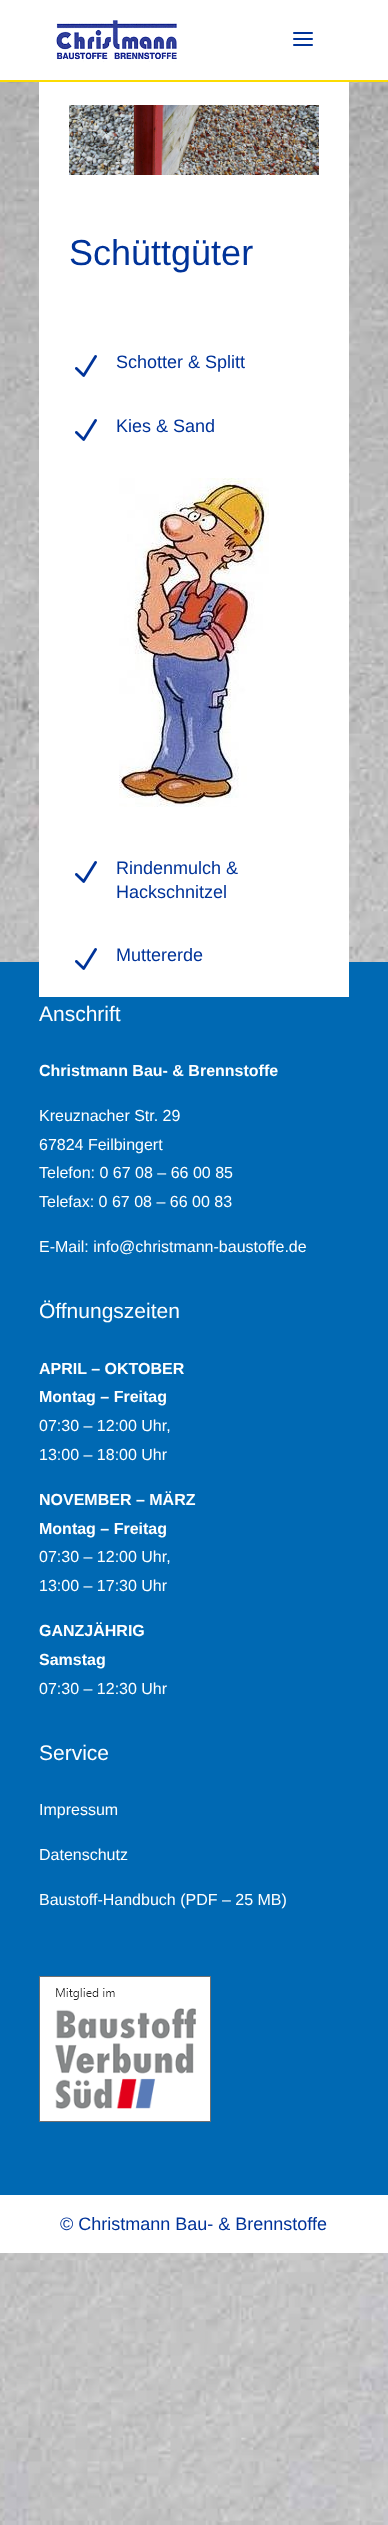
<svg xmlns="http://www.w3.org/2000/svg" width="388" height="2525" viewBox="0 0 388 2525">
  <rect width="100%" height="100%" fill="#ffffff"/>
  <image x="0" y="82" width="388" height="2443" href="img1.png"/>
  <rect x="0" y="80" width="388" height="2" fill="#fcdc03"/>
  <image x="56" y="20" width="121" height="42" href="img2.png"/>
  <image x="293" y="32" width="20" height="14" href="img3.png"/>
  <rect x="0" y="962" width="388" height="1233" fill="#0069b3"/>
  <rect x="39" y="82" width="310" height="915" fill="#ffffff"/>
  <image x="69" y="105" width="250" height="70" href="img4.png"/>
  <text x="69" y="265" font-family="Liberation Sans" font-size="36" fill="#003399">Schüttgüter</text>
  <image x="75" y="355" width="22" height="22" href="img5.png"/>
  <text x="116" y="368" font-family="Liberation Sans" font-size="18" fill="#003399">Schotter &amp; Splitt</text>
  <image x="75" y="419" width="22" height="22" href="img5.png"/>
  <text x="116" y="432" font-family="Liberation Sans" font-size="18" fill="#003399">Kies &amp; Sand</text>
  <image x="119" y="478" width="150" height="329" href="img6.png"/>
  <image x="75" y="861" width="22" height="22" href="img5.png"/>
  <text x="116" y="874" font-family="Liberation Sans" font-size="18" fill="#003399">Rindenmulch &amp;</text>
  <text x="116" y="898" font-family="Liberation Sans" font-size="18" fill="#003399">Hackschnitzel</text>
  <image x="75" y="948" width="22" height="22" href="img5.png"/>
  <text x="116" y="961" font-family="Liberation Sans" font-size="18" fill="#003399">Muttererde</text>
  <text x="39" y="1021" font-family="Liberation Sans" font-size="21" fill="#ffffff">Anschrift</text>
  <text x="39" y="1076" font-family="Liberation Sans" font-size="16" font-weight="bold" fill="#ffffff">Christmann Bau- &amp; Brennstoffe</text>
  <text x="39" y="1121" font-family="Liberation Sans" font-size="16" fill="#ffffff">Kreuznacher Str. 29</text>
  <text x="39" y="1150" font-family="Liberation Sans" font-size="16" fill="#ffffff">67824 Feilbingert</text>
  <text x="39" y="1178" font-family="Liberation Sans" font-size="16" fill="#ffffff">Telefon: 0 67 08 – 66 00 85</text>
  <text x="39" y="1207" font-family="Liberation Sans" font-size="16" fill="#ffffff">Telefax: 0 67 08 – 66 00 83</text>
  <text x="39" y="1252" font-family="Liberation Sans" font-size="16" fill="#ffffff">E-Mail: info@christmann-baustoffe.de</text>
  <text x="39" y="1318" font-family="Liberation Sans" font-size="21" fill="#ffffff">Öffnungszeiten</text>
  <text x="39" y="1374" font-family="Liberation Sans" font-size="16" font-weight="bold" fill="#ffffff">APRIL – OKTOBER</text>
  <text x="39" y="1402" font-family="Liberation Sans" font-size="16" font-weight="bold" fill="#ffffff">Montag – Freitag</text>
  <text x="39" y="1431" font-family="Liberation Sans" font-size="16" fill="#ffffff">07:30 – 12:00 Uhr,</text>
  <text x="39" y="1460" font-family="Liberation Sans" font-size="16" fill="#ffffff">13:00 – 18:00 Uhr</text>
  <text x="39" y="1505" font-family="Liberation Sans" font-size="16" font-weight="bold" fill="#ffffff">NOVEMBER – MÄRZ</text>
  <text x="39" y="1534" font-family="Liberation Sans" font-size="16" font-weight="bold" fill="#ffffff">Montag – Freitag</text>
  <text x="39" y="1562" font-family="Liberation Sans" font-size="16" fill="#ffffff">07:30 – 12:00 Uhr,</text>
  <text x="39" y="1591" font-family="Liberation Sans" font-size="16" fill="#ffffff">13:00 – 17:30 Uhr</text>
  <text x="39" y="1636" font-family="Liberation Sans" font-size="16" font-weight="bold" fill="#ffffff">GANZJÄHRIG</text>
  <text x="39" y="1665" font-family="Liberation Sans" font-size="16" font-weight="bold" fill="#ffffff">Samstag</text>
  <text x="39" y="1694" font-family="Liberation Sans" font-size="16" fill="#ffffff">07:30 – 12:30 Uhr</text>
  <text x="39" y="1760" font-family="Liberation Sans" font-size="21" fill="#ffffff">Service</text>
  <text x="39" y="1815" font-family="Liberation Sans" font-size="16" fill="#ffffff">Impressum</text>
  <text x="39" y="1860" font-family="Liberation Sans" font-size="16" fill="#ffffff">Datenschutz</text>
  <text x="39" y="1905" font-family="Liberation Sans" font-size="16" fill="#ffffff">Baustoff-Handbuch (PDF – 25 MB)</text>
  <image x="39" y="1976" width="172" height="146" href="img7.png"/>
  <rect x="0" y="2195" width="388" height="58" fill="#ffffff"/>
  <text x="60" y="2230" font-family="Liberation Sans" font-size="18" fill="#003399">© Christmann Bau- &amp; Brennstoffe</text>
</svg>
